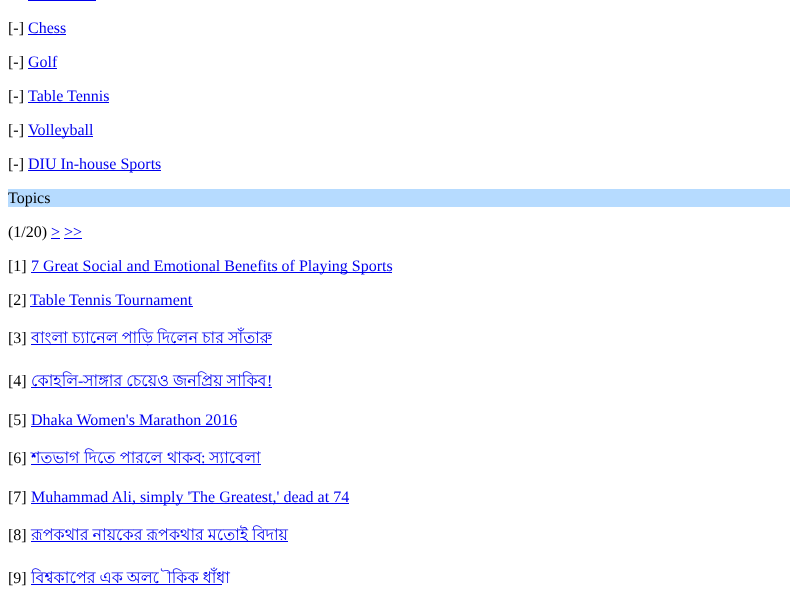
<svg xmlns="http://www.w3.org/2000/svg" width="798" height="603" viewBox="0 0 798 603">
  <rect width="100%" height="100%" fill="#ffffff"/>
  <rect x="28" y="0" width="68" height="1" fill="#0000ee"/>
  <text x="8" y="33" font-family="Liberation Serif" font-size="16" fill="#000000">[-]</text>
  <text x="28" y="33" font-family="Liberation Serif" font-size="16" fill="#0000ee">Chess</text>
  <rect x="28" y="34" width="38" height="1" fill="#0000ee"/>
  <text x="8" y="67" font-family="Liberation Serif" font-size="16" fill="#000000">[-]</text>
  <text x="28" y="67" font-family="Liberation Serif" font-size="16" fill="#0000ee">Golf</text>
  <rect x="28" y="68" width="29" height="1" fill="#0000ee"/>
  <text x="8" y="101" font-family="Liberation Serif" font-size="16" fill="#000000">[-]</text>
  <text x="28" y="101" font-family="Liberation Serif" font-size="16" fill="#0000ee">Table Tennis</text>
  <rect x="28" y="102" width="81" height="1" fill="#0000ee"/>
  <text x="8" y="135" font-family="Liberation Serif" font-size="16" fill="#000000">[-]</text>
  <rect x="28" y="136" width="65" height="1" fill="#0000ee"/>
  <text x="28" y="135" font-family="Liberation Serif" font-size="16" fill="#0000ee">Volleyball</text>
  <text x="8" y="169" font-family="Liberation Serif" font-size="16" fill="#000000">[-]</text>
  <rect x="28" y="170" width="133" height="1" fill="#0000ee"/>
  <text x="28" y="169" font-family="Liberation Serif" font-size="16" fill="#0000ee">DIU In-house Sports</text>
  <rect x="8" y="189" width="782" height="18" fill="#b6dbff"/>
  <text x="8" y="203" font-family="Liberation Serif" font-size="16" fill="#000000">Topics</text>
  <text x="8" y="237" font-family="Liberation Serif" font-size="16" fill="#000000">(1/20)</text>
  <text x="51" y="237" font-family="Liberation Serif" font-size="16" fill="#0000ee">&gt; &gt;&gt;</text>
  <rect x="51" y="238" width="9" height="1" fill="#0000ee"/>
  <rect x="64" y="238" width="18" height="1" fill="#0000ee"/>
  <text x="8" y="271" font-family="Liberation Serif" font-size="16" fill="#000000">[1]</text>
  <rect x="31" y="272" width="361" height="1" fill="#0000ee"/>
  <text x="31" y="271" font-family="Liberation Serif" font-size="16" fill="#0000ee">7 Great Social and Emotional Benefits of Playing Sports</text>
  <text x="8" y="305" font-family="Liberation Serif" font-size="16" fill="#000000">[2]</text>
  <text x="30" y="305" font-family="Liberation Serif" font-size="16" fill="#0000ee">Table Tennis Tournament</text>
  <rect x="30" y="306" width="163" height="1" fill="#0000ee"/>
  <text x="8" y="343" font-family="Liberation Serif" font-size="16" fill="#000000">[3]</text>
  <rect x="31" y="344" width="241" height="1" fill="#0000ee"/>
  <text x="31" y="343" word-spacing="-0.5" font-family="Lohit Bengali" font-size="16" fill="#0000ee">বাংলা চ্যানেল পাড়ি দিলেন চার সাঁতারু</text>
  <text x="8" y="386" font-family="Liberation Serif" font-size="16" fill="#000000">[4]</text>
  <rect x="31" y="387" width="241" height="1" fill="#0000ee"/>
  <text x="31" y="386" font-family="Lohit Bengali" font-size="16" fill="#0000ee">কোহলি</text>
  <text x="78" y="386" font-family="Liberation Serif" font-size="16" fill="#0000ee">-</text>
  <text x="83" y="386" word-spacing="-0.5" font-family="Lohit Bengali" font-size="16" fill="#0000ee">সাঙ্গার চেয়েও জনপ্রিয় সাকিব</text>
  <text x="267" y="386" font-family="Liberation Serif" font-size="16" fill="#0000ee">!</text>
  <text x="8" y="425" font-family="Liberation Serif" font-size="16" fill="#000000">[5]</text>
  <text x="31" y="425" font-family="Liberation Serif" font-size="16" fill="#0000ee">Dhaka Women's Marathon 2016</text>
  <rect x="31" y="426" width="206" height="1" fill="#0000ee"/>
  <text x="8" y="463" font-family="Liberation Serif" font-size="16" fill="#000000">[6]</text>
  <text x="31" y="463" font-family="Lohit Bengali" font-size="16" fill="#0000ee">শতভাগ দিতে পারলে থাকব</text>
  <text x="201" y="463" font-family="Liberation Serif" font-size="16" fill="#0000ee">:</text>
  <rect x="31" y="464" width="230" height="1" fill="#0000ee"/>
  <text x="209" y="463" font-family="Lohit Bengali" font-size="16" fill="#0000ee">স্যাবেলা</text>
  <text x="8" y="502" font-family="Liberation Serif" font-size="16" fill="#000000">[7]</text>
  <rect x="31" y="503" width="318" height="1" fill="#0000ee"/>
  <text x="31" y="502" font-family="Liberation Serif" font-size="16" fill="#0000ee">Muhammad Ali, simply 'The Greatest,' dead at 74</text>
  <text x="8" y="540" font-family="Liberation Serif" font-size="16" fill="#000000">[8]</text>
  <rect x="31" y="541" width="257" height="1" fill="#0000ee"/>
  <text x="31" y="540" word-spacing="-0.5" font-family="Lohit Bengali" font-size="16" fill="#0000ee">রূপকথার নায়কের রূপকথার মতোই বিদায়</text>
  <text x="8" y="583" font-family="Liberation Serif" font-size="16" fill="#000000">[9]</text>
  <text x="31" y="583" word-spacing="-0.5" font-family="Lohit Bengali" font-size="16" fill="#0000ee">বিশ্বকাপের এক অলৌকিক ধাঁধা</text>
  <rect x="31" y="584" width="191" height="1" fill="#0000ee"/>
</svg>
